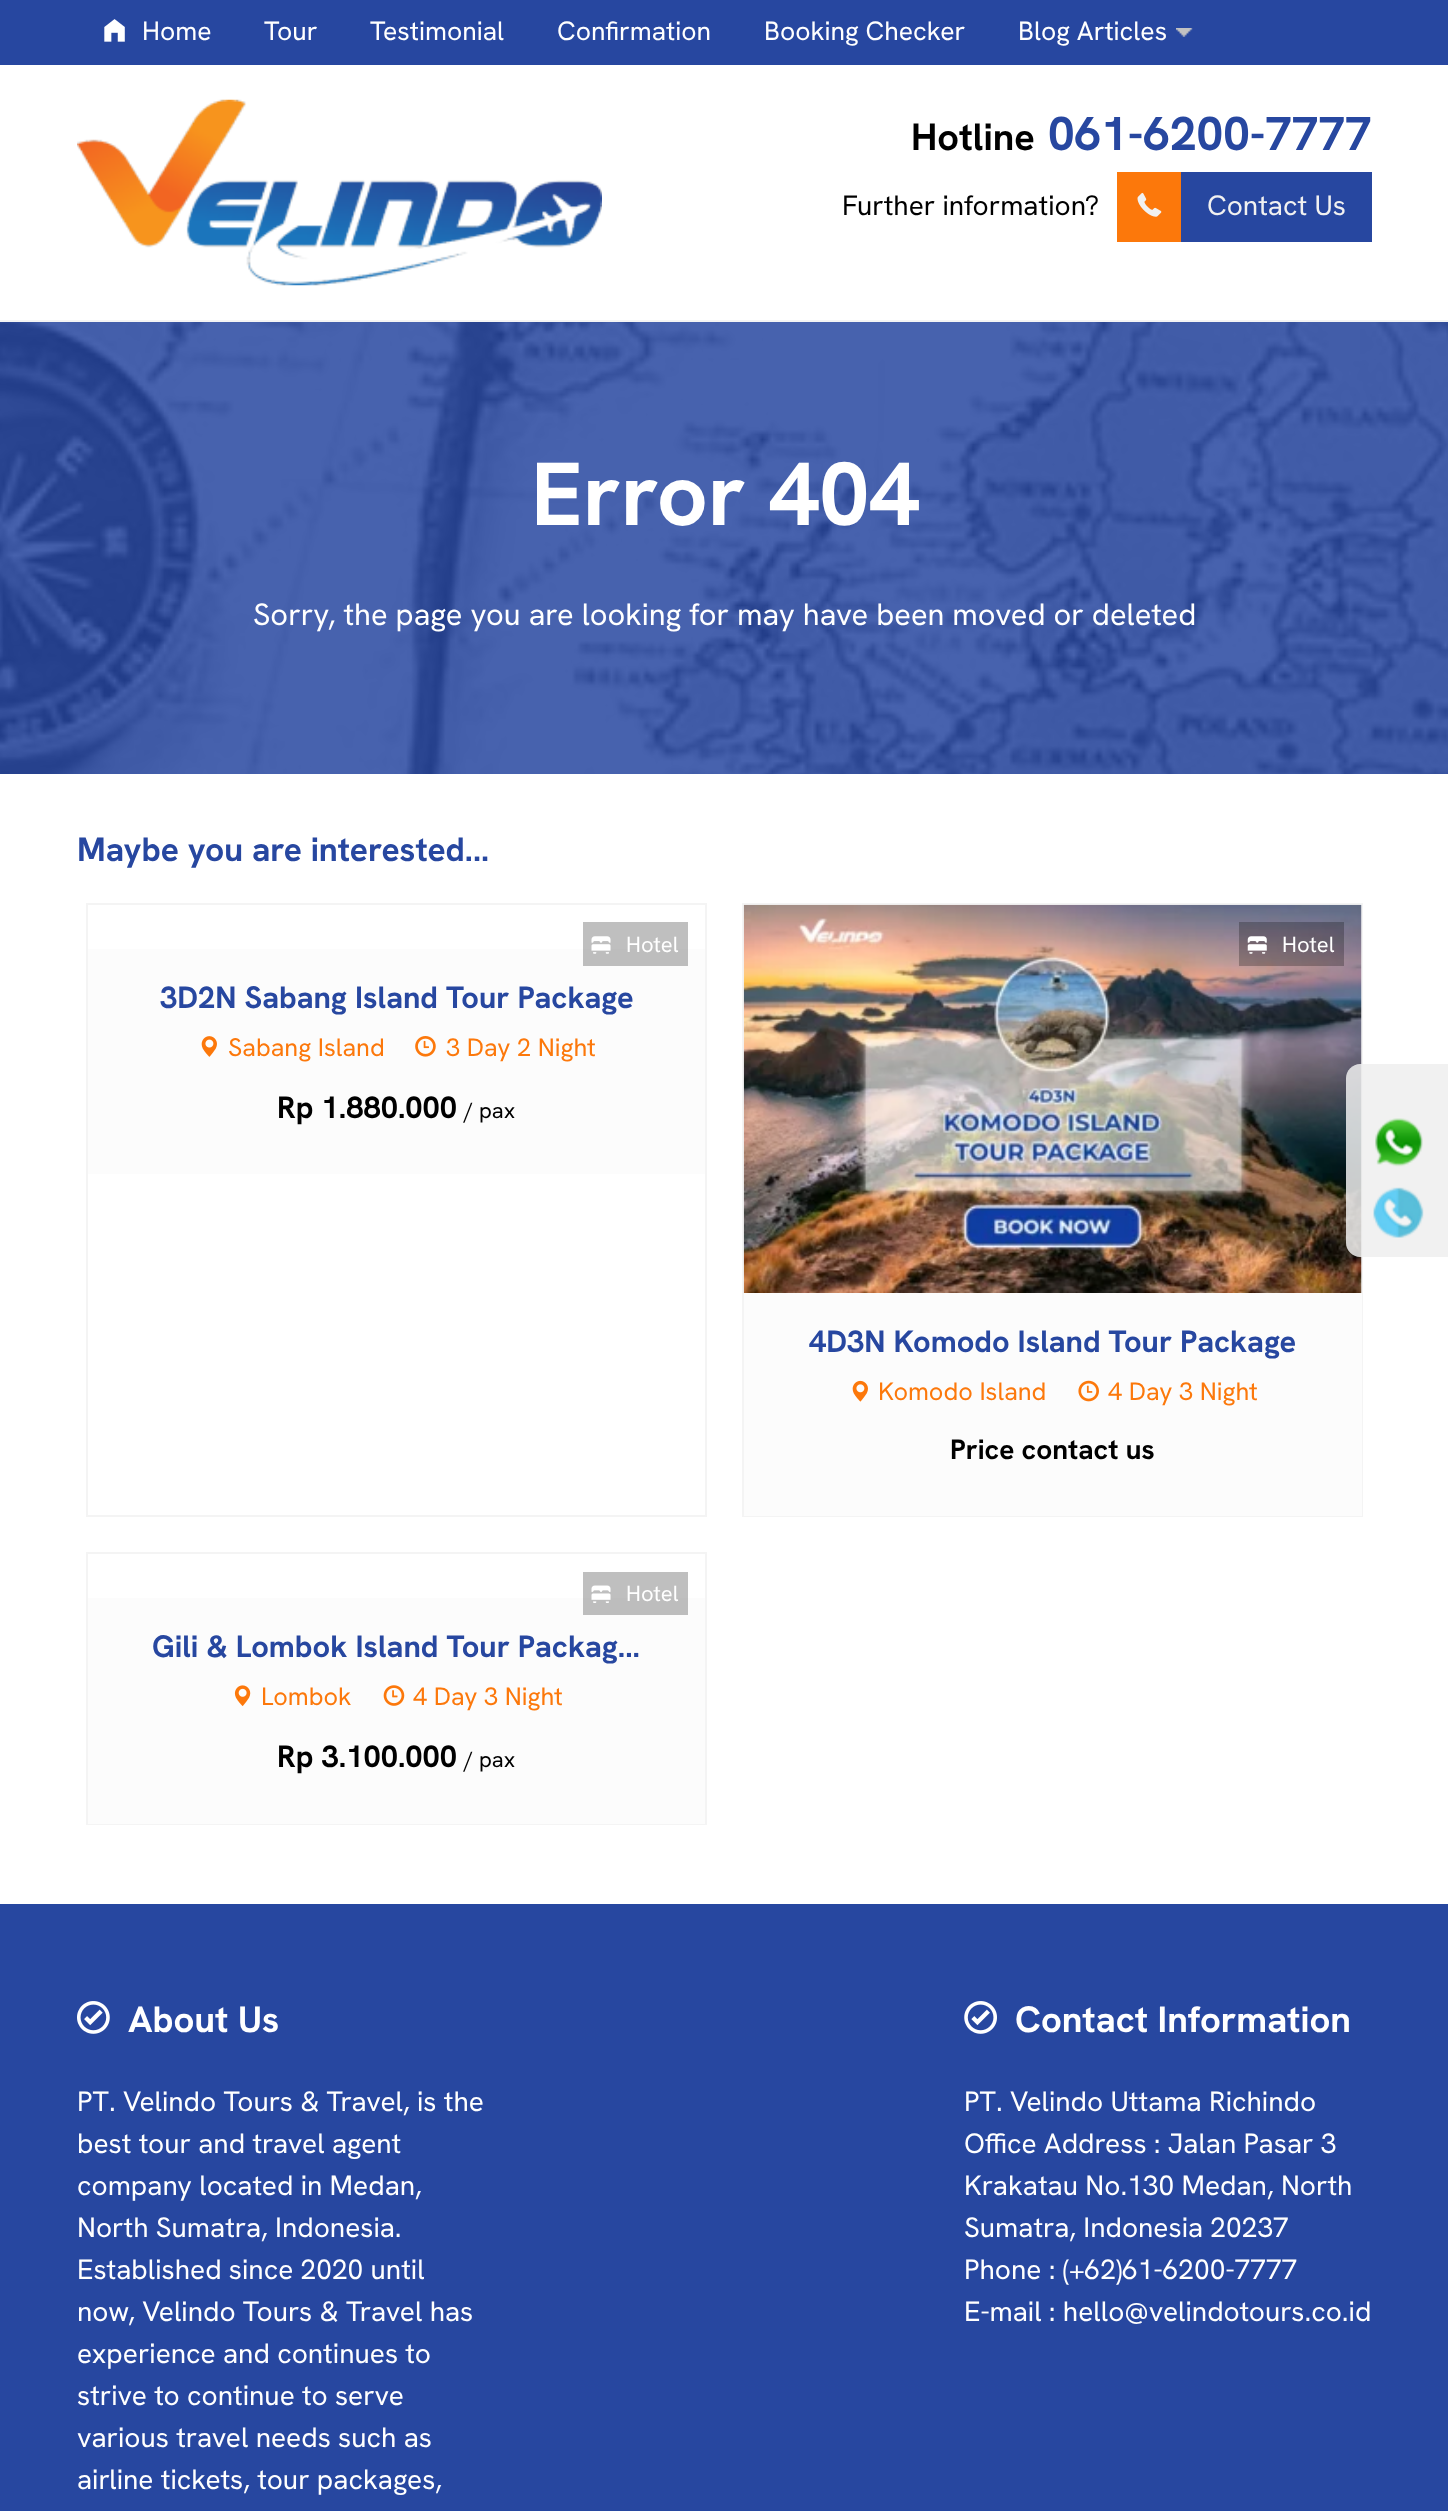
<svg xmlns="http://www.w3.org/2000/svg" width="1448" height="2511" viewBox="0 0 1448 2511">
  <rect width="100%" height="100%" fill="#2747a0"/>
  <image x="104" y="19" width="21" height="23" href="img1.png"/>
  <text x="142" y="40" font-family="Hanken Grotesk" font-size="26.5" fill="#ffffff">Home</text>
  <text x="264" y="40" font-family="Hanken Grotesk" font-size="26.5" fill="#ffffff">Tour</text>
  <text x="370" y="40" font-family="Hanken Grotesk" font-size="26.5" fill="#ffffff">Testimonial</text>
  <text x="557" y="40" font-family="Hanken Grotesk" font-size="26.5" fill="#ffffff">Confirmation</text>
  <text x="764" y="40" font-family="Hanken Grotesk" font-size="26.5" fill="#ffffff">Booking Checker</text>
  <image x="1176" y="28" width="17" height="9" href="img2.png"/>
  <text x="1018" y="40" font-family="Hanken Grotesk" font-size="26.5" fill="#ffffff">Blog Articles</text>
  <rect x="0" y="65" width="1448" height="255" fill="#ffffff"/>
  <rect x="0" y="320" width="1448" height="2" fill="#f4f4f4"/>
  <image x="77" y="99" width="525" height="187" href="img3.png"/>
  <text x="911" y="150" font-family="Hanken Grotesk" font-size="38" font-weight="bold" fill="#000000">Hotline</text>
  <text x="1048" y="150" font-family="Hanken Grotesk" font-size="47.5" font-weight="bold" fill="#2747a0">061-6200-7777</text>
  <text x="842" y="215" font-family="Hanken Grotesk" font-size="28" fill="#000000">Further information?</text>
  <rect x="1181" y="172" width="191" height="70" fill="#2747a0"/>
  <rect x="1117" y="172" width="64" height="70" fill="#fc780b"/>
  <image x="1137" y="192" width="25" height="25" href="img4.png"/>
  <text x="1207" y="215" font-family="Hanken Grotesk" font-size="28" fill="#f1f1f1">Contact Us</text>
  <image x="0" y="322" width="1448" height="452" href="img5.png"/>
  <text x="531" y="525" font-family="Hanken Grotesk" font-size="89.5" font-weight="bold" fill="#ffffff">Error 404</text>
  <text x="253" y="625" font-family="Hanken Grotesk" font-size="30.8" fill="#ffffff">Sorry, the page you are looking for may have been moved or deleted</text>
  <rect x="0" y="774" width="1448" height="1130" fill="#ffffff"/>
  <text x="77" y="861" font-family="Hanken Grotesk" font-size="33.6" font-weight="bold" fill="#2747a0">Maybe you are interested...</text>
  <rect x="87" y="904" width="619" height="612" fill="none" stroke="#f4f4f4" stroke-width="2"/>
  <rect x="88" y="949" width="617" height="225" fill="#fcfcfc"/>
  <rect x="583" y="922" width="105" height="44" fill="#000000" fill-opacity="0.25"/>
  <image x="591" y="936" width="20" height="18" href="img6.png"/>
  <text x="626" y="952" font-family="Hanken Grotesk" font-size="22" fill="#ffffff">Hotel</text>
  <text x="160" y="1008" font-family="Hanken Grotesk" font-size="30.8" font-weight="bold" fill="#2747a0">3D2N Sabang Island Tour Package</text>
  <image x="201" y="1036" width="16" height="21" href="img7.png"/>
  <text x="228" y="1056" font-family="Hanken Grotesk" font-size="25.25" fill="#fc780b">Sabang Island</text>
  <image x="415" y="1036" width="21" height="21" href="img8.png"/>
  <text x="446" y="1056" font-family="Hanken Grotesk" font-size="25.25" fill="#fc780b">3 Day 2 Night</text>
  <text x="277" y="1118" font-family="Hanken Grotesk" font-size="30.8" font-weight="bold" fill="#000000">Rp 1.880.000</text>
  <text x="464" y="1118" font-family="Hanken Grotesk" font-size="22" fill="#000000">/ pax</text>
  <rect x="743" y="904" width="619" height="612" fill="none" stroke="#f4f4f4" stroke-width="2"/>
  <image x="743" y="904" width="619" height="389" href="img9.png"/>
  <rect x="1239" y="922" width="105" height="44" fill="#000000" fill-opacity="0.25"/>
  <image x="1247" y="936" width="20" height="18" href="img10.png"/>
  <text x="1282" y="952" font-family="Hanken Grotesk" font-size="22" fill="#ffffff">Hotel</text>
  <rect x="744" y="1293" width="618" height="223" fill="#fcfcfc"/>
  <text x="809" y="1352" font-family="Hanken Grotesk" font-size="30.8" font-weight="bold" fill="#2747a0">4D3N Komodo Island Tour Package</text>
  <image x="852" y="1380" width="16" height="22" href="img11.png"/>
  <text x="878" y="1400" font-family="Hanken Grotesk" font-size="25.25" fill="#fc780b">Komodo Island</text>
  <image x="1078" y="1380" width="21" height="22" href="img12.png"/>
  <text x="1108" y="1400" font-family="Hanken Grotesk" font-size="25.25" fill="#fc780b">4 Day 3 Night</text>
  <text x="950" y="1459" font-family="Hanken Grotesk" font-size="28" font-weight="bold" fill="#000000">Price contact us</text>
  <rect x="87" y="1553" width="619" height="271" fill="none" stroke="#f4f4f4" stroke-width="2"/>
  <rect x="88" y="1598" width="617" height="226" fill="#fcfcfc"/>
  <rect x="583" y="1572" width="105" height="43" fill="#000000" fill-opacity="0.25"/>
  <image x="591" y="1585" width="20" height="18" href="img13.png"/>
  <text x="626" y="1601" font-family="Hanken Grotesk" font-size="22" fill="#ffffff">Hotel</text>
  <text x="152" y="1657" font-family="Hanken Grotesk" font-size="30.8" font-weight="bold" fill="#2747a0">Gili &amp; Lombok Island Tour Packag...</text>
  <image x="234" y="1685" width="17" height="22" href="img14.png"/>
  <text x="261" y="1705" font-family="Hanken Grotesk" font-size="25.25" fill="#fc780b">Lombok</text>
  <image x="383" y="1685" width="22" height="21" href="img15.png"/>
  <text x="413" y="1705" font-family="Hanken Grotesk" font-size="25.25" fill="#fc780b">4 Day 3 Night</text>
  <text x="277" y="1767" font-family="Hanken Grotesk" font-size="30.8" font-weight="bold" fill="#000000">Rp 3.100.000</text>
  <text x="464" y="1767" font-family="Hanken Grotesk" font-size="22" fill="#000000">/ pax</text>
  <path d="M1360 1064H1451V1257H1360C1352.5 1257 1346 1250.5 1346 1243V1078C1346 1070.5 1352.5 1064 1360 1064Z" fill="#eeeeee" fill-opacity="0.85"/>
  <image x="1375" y="1118" width="48" height="49" href="img16.png"/>
  <image x="1373" y="1187" width="51" height="51" href="img17.png"/>
  <image x="77" y="2001" width="33" height="33" href="img18.png"/>
  <text x="128" y="2032" font-family="Hanken Grotesk" font-size="36.5" font-weight="bold" fill="#ffffff">About Us</text>
  <text x="77" y="2111" font-family="Hanken Grotesk" font-size="28" fill="#ffffff">PT. Velindo Tours &amp; Travel, is the</text>
  <text x="77" y="2153" font-family="Hanken Grotesk" font-size="28" fill="#ffffff">best tour and travel agent</text>
  <text x="77" y="2195" font-family="Hanken Grotesk" font-size="28" fill="#ffffff">company located in Medan,</text>
  <text x="77" y="2237" font-family="Hanken Grotesk" font-size="28" fill="#ffffff">North Sumatra, Indonesia.</text>
  <text x="77" y="2279" font-family="Hanken Grotesk" font-size="28" fill="#ffffff">Established since 2020 until</text>
  <text x="77" y="2321" font-family="Hanken Grotesk" font-size="28" fill="#ffffff">now, Velindo Tours &amp; Travel has</text>
  <text x="77" y="2363" font-family="Hanken Grotesk" font-size="28" fill="#ffffff">experience and continues to</text>
  <text x="77" y="2405" font-family="Hanken Grotesk" font-size="28" fill="#ffffff">strive to continue to serve</text>
  <text x="77" y="2447" font-family="Hanken Grotesk" font-size="28" fill="#ffffff">various travel needs such as</text>
  <text x="77" y="2489" font-family="Hanken Grotesk" font-size="28" fill="#ffffff">airline tickets, tour packages,</text>
  <image x="964" y="2001" width="33" height="33" href="img19.png"/>
  <text x="1015" y="2032" font-family="Hanken Grotesk" font-size="36.5" font-weight="bold" fill="#ffffff">Contact Information</text>
  <text x="964" y="2111" font-family="Hanken Grotesk" font-size="28" fill="#ffffff">PT. Velindo Uttama Richindo</text>
  <text x="964" y="2153" font-family="Hanken Grotesk" font-size="28" fill="#ffffff">Office Address : Jalan Pasar 3</text>
  <text x="964" y="2195" font-family="Hanken Grotesk" font-size="28" fill="#ffffff">Krakatau No.130 Medan, North</text>
  <text x="964" y="2237" font-family="Hanken Grotesk" font-size="28" fill="#ffffff">Sumatra, Indonesia 20237</text>
  <text x="964" y="2279" font-family="Hanken Grotesk" font-size="28" fill="#ffffff">Phone : (+62)61-6200-7777</text>
  <text x="964" y="2321" font-family="Hanken Grotesk" font-size="28" fill="#ffffff">E-mail : hello@velindotours.co.id</text>
</svg>
